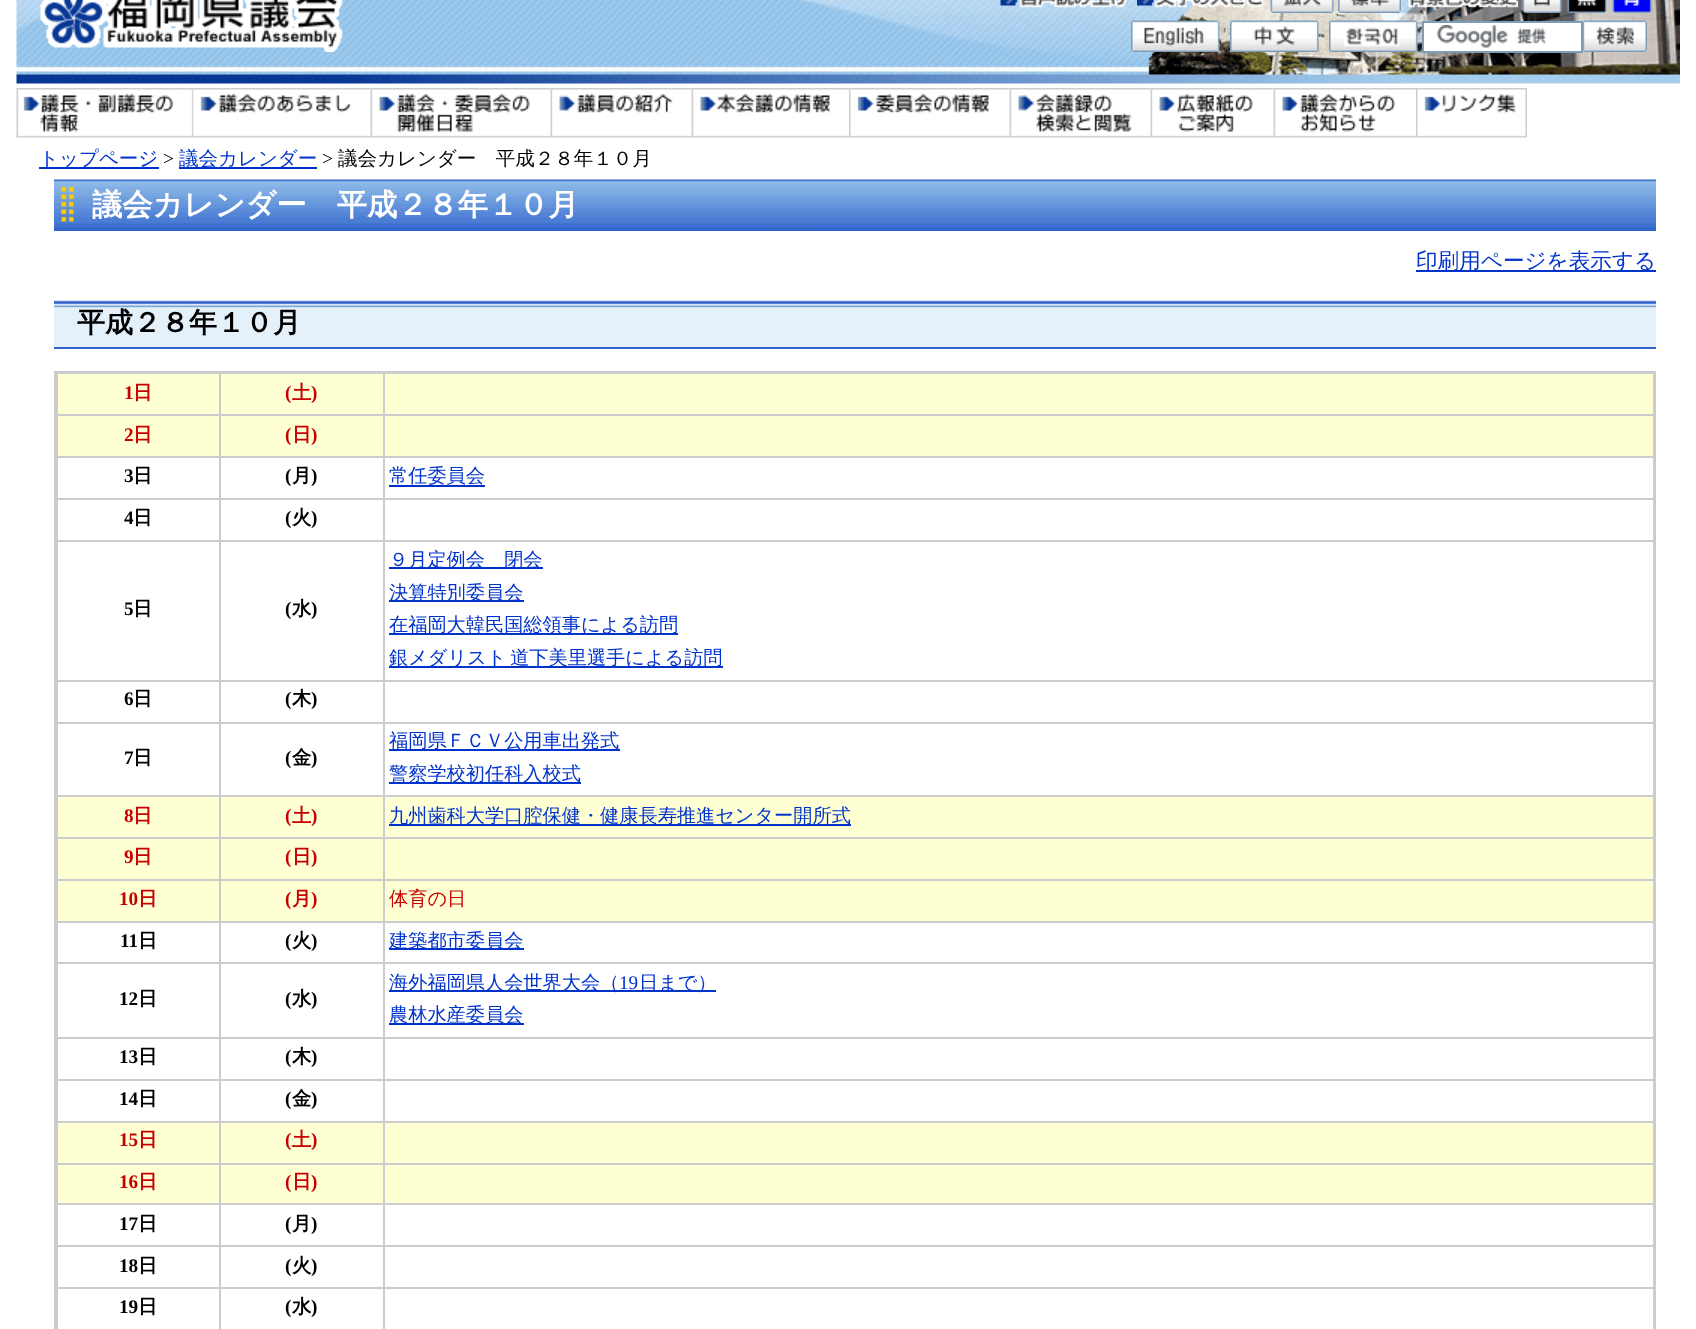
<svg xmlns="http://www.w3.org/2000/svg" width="1696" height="1329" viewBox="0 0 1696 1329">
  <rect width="100%" height="100%" fill="#ffffff"/>
  <image x="16" y="0" width="1664" height="84" href="img1.png"/>
  <image x="40" y="0" width="303" height="52" href="img2.png"/>
  <image x="1148" y="0" width="532" height="75" href="img3.png"/>
  <image x="1000" y="0" width="127" height="8" href="img4.png"/>
  <image x="1137" y="0" width="127" height="8" href="img5.png"/>
  <image x="1270" y="0" width="64" height="13" href="img6.png"/>
  <image x="1338" y="0" width="63" height="13" href="img7.png"/>
  <image x="1408" y="0" width="110" height="8" href="img8.png"/>
  <image x="1522" y="0" width="40" height="13" href="img9.png"/>
  <image x="1567" y="0" width="40" height="13" href="img10.png"/>
  <image x="1612" y="0" width="40" height="13" href="img11.png"/>
  <image x="1131" y="20" width="89" height="32" href="img12.png"/>
  <image x="1230" y="20" width="89" height="32" href="img13.png"/>
  <image x="1329" y="20" width="89" height="32" href="img14.png"/>
  <rect x="1424" y="23" width="157" height="28" fill="#ffffff"/>
  <image x="1437" y="25" width="110" height="23" href="img15.png"/>
  <rect x="1423" y="22" width="159" height="30" fill="none" stroke="#7f9db9" stroke-width="2"/>
  <image x="1583" y="20" width="64" height="32" href="img16.png"/>
  <image x="16" y="88" width="178" height="50" href="img17.png"/>
  <image x="193" y="88" width="178" height="50" href="img18.png"/>
  <image x="370" y="88" width="181" height="50" href="img19.png"/>
  <image x="550" y="88" width="142" height="50" href="img20.png"/>
  <image x="691" y="88" width="158" height="50" href="img21.png"/>
  <image x="849" y="88" width="161" height="50" href="img22.png"/>
  <image x="1009" y="88" width="142" height="50" href="img23.png"/>
  <image x="1150" y="88" width="124" height="50" href="img24.png"/>
  <image x="1273" y="88" width="143" height="50" href="img25.png"/>
  <image x="1416" y="88" width="111" height="50" href="img26.png"/>
  <rect x="39" y="167" width="120" height="2" fill="#0033cc"/>
  <text x="39" y="165" font-family="WenQuanYi Zen Hei" font-size="19.5" font-weight="500" fill="#0033cc">トップページ</text>
  <text x="163" y="165" font-family="Liberation Serif" font-size="19.5" fill="#000000">&gt;</text>
  <rect x="179" y="167" width="138" height="2" fill="#0033cc"/>
  <text x="179" y="165" font-family="WenQuanYi Zen Hei" font-size="19.5" font-weight="500" fill="#0033cc">議会カレンダー</text>
  <text x="322" y="165" font-family="Liberation Serif" font-size="19.5" fill="#000000">&gt;</text>
  <text x="338" y="165" font-family="WenQuanYi Zen Hei" font-size="19.5" font-weight="500" fill="#000000">議会カレンダー　平成２８年１０月</text>
  <rect x="54" y="228" width="1602" height="3" fill="#3366cc"/>
  <image x="54" y="179" width="1602" height="49" href="img27.png"/>
  <image x="61" y="186" width="13" height="36" href="img28.png"/>
  <text x="92" y="215" font-family="WenQuanYi Zen Hei" font-size="30.25" font-weight="bold" fill="#ffffff">議会カレンダー　平成２８年１０月</text>
  <rect x="1416" y="270" width="240" height="2" fill="#0033cc"/>
  <text x="1416" y="268" font-family="WenQuanYi Zen Hei" font-size="21.6" font-weight="500" fill="#0033cc">印刷用ページを表示する</text>
  <rect x="54" y="308" width="1602" height="39" fill="#e5f1fa"/>
  <image x="54" y="300" width="1602" height="8" href="img29.png"/>
  <rect x="54" y="347" width="1602" height="2" fill="#3366cc"/>
  <text x="77" y="332" font-family="WenQuanYi Zen Hei" font-size="28" font-weight="bold" fill="#000000">平成２８年１０月</text>
  <rect x="55" y="372" width="1600" height="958" fill="none" stroke="#cccccc" stroke-width="2"/>
  <rect x="58" y="374" width="161" height="40" fill="#ffffd4"/>
  <rect x="383" y="373" width="1272" height="1" fill="#cccccc"/>
  <rect x="383" y="414" width="1272" height="2" fill="#cccccc"/>
  <rect x="383" y="456" width="1272" height="2" fill="#cccccc"/>
  <rect x="383" y="498" width="1272" height="2" fill="#cccccc"/>
  <rect x="383" y="540" width="1272" height="2" fill="#cccccc"/>
  <rect x="383" y="680" width="1272" height="2" fill="#cccccc"/>
  <rect x="383" y="722" width="1272" height="2" fill="#cccccc"/>
  <rect x="383" y="795" width="1272" height="2" fill="#cccccc"/>
  <rect x="383" y="837" width="1272" height="2" fill="#cccccc"/>
  <rect x="383" y="879" width="1272" height="2" fill="#cccccc"/>
  <rect x="383" y="921" width="1272" height="2" fill="#cccccc"/>
  <rect x="383" y="962" width="1272" height="2" fill="#cccccc"/>
  <rect x="383" y="1037" width="1272" height="2" fill="#cccccc"/>
  <rect x="383" y="1079" width="1272" height="2" fill="#cccccc"/>
  <rect x="383" y="1121" width="1272" height="2" fill="#cccccc"/>
  <rect x="383" y="1163" width="1272" height="2" fill="#cccccc"/>
  <rect x="383" y="1203" width="1272" height="2" fill="#cccccc"/>
  <rect x="383" y="1245" width="1272" height="2" fill="#cccccc"/>
  <rect x="383" y="1287" width="1272" height="2" fill="#cccccc"/>
  <rect x="383" y="1287" width="2" height="42" fill="#cccccc"/>
  <rect x="219" y="1287" width="165" height="2" fill="#cccccc"/>
  <rect x="383" y="1245" width="2" height="44" fill="#cccccc"/>
  <rect x="219" y="1245" width="165" height="2" fill="#cccccc"/>
  <rect x="383" y="1203" width="2" height="44" fill="#cccccc"/>
  <rect x="219" y="1203" width="165" height="2" fill="#cccccc"/>
  <rect x="383" y="1163" width="2" height="42" fill="#cccccc"/>
  <rect x="219" y="1163" width="165" height="2" fill="#cccccc"/>
  <rect x="383" y="1121" width="2" height="43" fill="#cccccc"/>
  <rect x="219" y="1121" width="165" height="2" fill="#cccccc"/>
  <rect x="383" y="1079" width="2" height="43" fill="#cccccc"/>
  <rect x="219" y="1079" width="165" height="2" fill="#cccccc"/>
  <rect x="383" y="1037" width="2" height="43" fill="#cccccc"/>
  <rect x="219" y="1037" width="165" height="2" fill="#cccccc"/>
  <rect x="383" y="962" width="2" height="76" fill="#cccccc"/>
  <rect x="219" y="962" width="165" height="2" fill="#cccccc"/>
  <rect x="383" y="921" width="2" height="42" fill="#cccccc"/>
  <rect x="219" y="921" width="165" height="2" fill="#cccccc"/>
  <rect x="383" y="879" width="2" height="44" fill="#cccccc"/>
  <rect x="219" y="879" width="165" height="2" fill="#cccccc"/>
  <rect x="383" y="837" width="2" height="44" fill="#cccccc"/>
  <rect x="219" y="837" width="165" height="2" fill="#cccccc"/>
  <rect x="383" y="795" width="2" height="44" fill="#cccccc"/>
  <rect x="219" y="795" width="165" height="2" fill="#cccccc"/>
  <rect x="383" y="722" width="2" height="75" fill="#cccccc"/>
  <rect x="219" y="722" width="165" height="2" fill="#cccccc"/>
  <rect x="383" y="680" width="2" height="43" fill="#cccccc"/>
  <rect x="219" y="680" width="165" height="2" fill="#cccccc"/>
  <rect x="383" y="540" width="2" height="141" fill="#cccccc"/>
  <rect x="219" y="540" width="165" height="2" fill="#cccccc"/>
  <rect x="383" y="498" width="2" height="44" fill="#cccccc"/>
  <rect x="219" y="498" width="165" height="2" fill="#cccccc"/>
  <rect x="383" y="456" width="2" height="44" fill="#cccccc"/>
  <rect x="219" y="456" width="165" height="2" fill="#cccccc"/>
  <rect x="383" y="414" width="2" height="44" fill="#cccccc"/>
  <rect x="219" y="414" width="165" height="2" fill="#cccccc"/>
  <rect x="383" y="372" width="2" height="44" fill="#cccccc"/>
  <rect x="219" y="373" width="165" height="1" fill="#cccccc"/>
  <rect x="219" y="1287" width="2" height="42" fill="#cccccc"/>
  <rect x="56" y="1287" width="165" height="2" fill="#cccccc"/>
  <rect x="219" y="1245" width="2" height="44" fill="#cccccc"/>
  <rect x="56" y="1245" width="165" height="2" fill="#cccccc"/>
  <rect x="219" y="1203" width="2" height="44" fill="#cccccc"/>
  <rect x="56" y="1203" width="165" height="2" fill="#cccccc"/>
  <rect x="219" y="1163" width="2" height="42" fill="#cccccc"/>
  <rect x="56" y="1163" width="165" height="2" fill="#cccccc"/>
  <rect x="219" y="1121" width="2" height="43" fill="#cccccc"/>
  <rect x="56" y="1121" width="165" height="2" fill="#cccccc"/>
  <rect x="219" y="1079" width="2" height="43" fill="#cccccc"/>
  <rect x="56" y="1079" width="165" height="2" fill="#cccccc"/>
  <rect x="219" y="1037" width="2" height="43" fill="#cccccc"/>
  <rect x="56" y="1037" width="165" height="2" fill="#cccccc"/>
  <rect x="219" y="962" width="2" height="76" fill="#cccccc"/>
  <rect x="56" y="962" width="165" height="2" fill="#cccccc"/>
  <rect x="219" y="921" width="2" height="42" fill="#cccccc"/>
  <rect x="56" y="921" width="165" height="2" fill="#cccccc"/>
  <rect x="219" y="879" width="2" height="44" fill="#cccccc"/>
  <rect x="56" y="879" width="165" height="2" fill="#cccccc"/>
  <rect x="219" y="837" width="2" height="44" fill="#cccccc"/>
  <rect x="56" y="837" width="165" height="2" fill="#cccccc"/>
  <rect x="219" y="795" width="2" height="44" fill="#cccccc"/>
  <rect x="56" y="795" width="165" height="2" fill="#cccccc"/>
  <rect x="219" y="722" width="2" height="75" fill="#cccccc"/>
  <rect x="56" y="722" width="165" height="2" fill="#cccccc"/>
  <rect x="219" y="680" width="2" height="43" fill="#cccccc"/>
  <rect x="56" y="680" width="165" height="2" fill="#cccccc"/>
  <rect x="219" y="540" width="2" height="141" fill="#cccccc"/>
  <rect x="56" y="540" width="165" height="2" fill="#cccccc"/>
  <rect x="219" y="498" width="2" height="44" fill="#cccccc"/>
  <rect x="56" y="498" width="165" height="2" fill="#cccccc"/>
  <rect x="219" y="456" width="2" height="44" fill="#cccccc"/>
  <rect x="56" y="456" width="165" height="2" fill="#cccccc"/>
  <rect x="219" y="414" width="2" height="44" fill="#cccccc"/>
  <rect x="56" y="414" width="165" height="2" fill="#cccccc"/>
  <rect x="219" y="372" width="2" height="44" fill="#cccccc"/>
  <rect x="56" y="373" width="165" height="1" fill="#cccccc"/>
  <rect x="56" y="1287" width="2" height="42" fill="#cccccc"/>
  <rect x="56" y="1245" width="2" height="44" fill="#cccccc"/>
  <rect x="56" y="1203" width="2" height="44" fill="#cccccc"/>
  <rect x="56" y="1163" width="2" height="42" fill="#cccccc"/>
  <rect x="56" y="1121" width="2" height="43" fill="#cccccc"/>
  <rect x="56" y="1079" width="2" height="43" fill="#cccccc"/>
  <rect x="56" y="1037" width="2" height="43" fill="#cccccc"/>
  <rect x="56" y="962" width="2" height="76" fill="#cccccc"/>
  <rect x="56" y="921" width="2" height="42" fill="#cccccc"/>
  <rect x="56" y="879" width="2" height="44" fill="#cccccc"/>
  <rect x="56" y="837" width="2" height="44" fill="#cccccc"/>
  <rect x="56" y="795" width="2" height="44" fill="#cccccc"/>
  <rect x="56" y="722" width="2" height="75" fill="#cccccc"/>
  <rect x="56" y="680" width="2" height="43" fill="#cccccc"/>
  <rect x="56" y="540" width="2" height="141" fill="#cccccc"/>
  <rect x="56" y="498" width="2" height="44" fill="#cccccc"/>
  <rect x="56" y="456" width="2" height="44" fill="#cccccc"/>
  <rect x="56" y="414" width="2" height="44" fill="#cccccc"/>
  <rect x="56" y="372" width="2" height="44" fill="#cccccc"/>
  <text x="124" y="399" font-family="Liberation Serif" font-size="19.2" font-weight="bold" fill="#c80002">1</text>
  <text x="133" y="399" font-family="WenQuanYi Zen Hei" font-size="19.2" font-weight="bold" fill="#c80002">日</text>
  <rect x="221" y="374" width="162" height="40" fill="#ffffd4"/>
  <text x="285" y="399" font-family="Liberation Serif" font-size="19.2" font-weight="bold" fill="#c80002">(</text>
  <text x="292" y="399" font-family="WenQuanYi Zen Hei" font-size="19.2" font-weight="bold" fill="#c80002">土</text>
  <text x="311" y="399" font-family="Liberation Serif" font-size="19.2" font-weight="bold" fill="#c80002">)</text>
  <rect x="385" y="374" width="1268" height="40" fill="#ffffd4"/>
  <rect x="1653" y="1287" width="1" height="42" fill="#cccccc"/>
  <rect x="1653" y="1245" width="1" height="44" fill="#cccccc"/>
  <rect x="1653" y="1203" width="1" height="44" fill="#cccccc"/>
  <rect x="1653" y="1163" width="1" height="42" fill="#cccccc"/>
  <rect x="1653" y="1121" width="1" height="43" fill="#cccccc"/>
  <rect x="1653" y="1079" width="1" height="43" fill="#cccccc"/>
  <rect x="1653" y="1037" width="1" height="43" fill="#cccccc"/>
  <rect x="1653" y="962" width="1" height="76" fill="#cccccc"/>
  <rect x="1653" y="921" width="1" height="42" fill="#cccccc"/>
  <rect x="1653" y="879" width="1" height="44" fill="#cccccc"/>
  <rect x="1653" y="837" width="1" height="44" fill="#cccccc"/>
  <rect x="1653" y="795" width="1" height="44" fill="#cccccc"/>
  <rect x="1653" y="722" width="1" height="75" fill="#cccccc"/>
  <rect x="1653" y="680" width="1" height="43" fill="#cccccc"/>
  <rect x="1653" y="540" width="1" height="141" fill="#cccccc"/>
  <rect x="1653" y="498" width="1" height="44" fill="#cccccc"/>
  <rect x="1653" y="456" width="1" height="44" fill="#cccccc"/>
  <rect x="1653" y="414" width="1" height="44" fill="#cccccc"/>
  <rect x="1653" y="372" width="1" height="44" fill="#cccccc"/>
  <rect x="58" y="416" width="161" height="40" fill="#ffffd4"/>
  <text x="124" y="441" font-family="Liberation Serif" font-size="19.2" font-weight="bold" fill="#c80002">2</text>
  <text x="133" y="441" font-family="WenQuanYi Zen Hei" font-size="19.2" font-weight="bold" fill="#c80002">日</text>
  <rect x="221" y="416" width="162" height="40" fill="#ffffd4"/>
  <text x="285" y="441" font-family="Liberation Serif" font-size="19.2" font-weight="bold" fill="#c80002">(</text>
  <text x="292" y="441" font-family="WenQuanYi Zen Hei" font-size="19.2" font-weight="bold" fill="#c80002">日</text>
  <text x="311" y="441" font-family="Liberation Serif" font-size="19.2" font-weight="bold" fill="#c80002">)</text>
  <rect x="385" y="416" width="1268" height="40" fill="#ffffd4"/>
  <text x="124" y="482" font-family="Liberation Serif" font-size="19.2" font-weight="bold" fill="#000000">3</text>
  <text x="133" y="482" font-family="WenQuanYi Zen Hei" font-size="19.2" font-weight="bold" fill="#000000">日</text>
  <text x="285" y="482" font-family="Liberation Serif" font-size="19.2" font-weight="bold" fill="#000000">(</text>
  <text x="292" y="482" font-family="WenQuanYi Zen Hei" font-size="19.2" font-weight="bold" fill="#000000">月</text>
  <text x="311" y="482" font-family="Liberation Serif" font-size="19.2" font-weight="bold" fill="#000000">)</text>
  <rect x="389" y="485" width="96" height="2" fill="#0033cc"/>
  <text x="389" y="482" font-family="WenQuanYi Zen Hei" font-size="19.2" font-weight="500" fill="#0033cc">常任委員会</text>
  <text x="124" y="524" font-family="Liberation Serif" font-size="19.2" font-weight="bold" fill="#000000">4</text>
  <text x="133" y="524" font-family="WenQuanYi Zen Hei" font-size="19.2" font-weight="bold" fill="#000000">日</text>
  <text x="285" y="524" font-family="Liberation Serif" font-size="19.2" font-weight="bold" fill="#000000">(</text>
  <text x="292" y="524" font-family="WenQuanYi Zen Hei" font-size="19.2" font-weight="bold" fill="#000000">火</text>
  <text x="311" y="524" font-family="Liberation Serif" font-size="19.2" font-weight="bold" fill="#000000">)</text>
  <text x="124" y="615" font-family="Liberation Serif" font-size="19.2" font-weight="bold" fill="#000000">5</text>
  <text x="133" y="615" font-family="WenQuanYi Zen Hei" font-size="19.2" font-weight="bold" fill="#000000">日</text>
  <text x="285" y="615" font-family="Liberation Serif" font-size="19.2" font-weight="bold" fill="#000000">(</text>
  <text x="292" y="615" font-family="WenQuanYi Zen Hei" font-size="19.2" font-weight="bold" fill="#000000">水</text>
  <text x="311" y="615" font-family="Liberation Serif" font-size="19.2" font-weight="bold" fill="#000000">)</text>
  <rect x="389" y="567" width="154" height="2" fill="#0033cc"/>
  <text x="389" y="566" font-family="WenQuanYi Zen Hei" font-size="19.2" font-weight="500" fill="#0033cc">９月定例会　閉会</text>
  <rect x="389" y="600" width="135" height="2" fill="#0033cc"/>
  <text x="389" y="599" font-family="WenQuanYi Zen Hei" font-size="19.2" font-weight="500" fill="#0033cc">決算特別委員会</text>
  <rect x="389" y="633" width="289" height="2" fill="#0033cc"/>
  <text x="389" y="631" font-family="WenQuanYi Zen Hei" font-size="19.2" font-weight="500" fill="#0033cc">在福岡大韓民国総領事による訪問</text>
  <rect x="389" y="666" width="334" height="2" fill="#0033cc"/>
  <text x="389" y="664" word-spacing="-2" font-family="WenQuanYi Zen Hei" font-size="19.2" font-weight="500" fill="#0033cc">銀メダリスト 道下美里選手による訪問</text>
  <text x="124" y="705" font-family="Liberation Serif" font-size="19.2" font-weight="bold" fill="#000000">6</text>
  <text x="133" y="705" font-family="WenQuanYi Zen Hei" font-size="19.2" font-weight="bold" fill="#000000">日</text>
  <text x="285" y="705" font-family="Liberation Serif" font-size="19.2" font-weight="bold" fill="#000000">(</text>
  <text x="292" y="705" font-family="WenQuanYi Zen Hei" font-size="19.2" font-weight="bold" fill="#000000">木</text>
  <text x="311" y="705" font-family="Liberation Serif" font-size="19.2" font-weight="bold" fill="#000000">)</text>
  <text x="124" y="764" font-family="Liberation Serif" font-size="19.2" font-weight="bold" fill="#000000">7</text>
  <text x="133" y="764" font-family="WenQuanYi Zen Hei" font-size="19.2" font-weight="bold" fill="#000000">日</text>
  <text x="285" y="764" font-family="Liberation Serif" font-size="19.2" font-weight="bold" fill="#000000">(</text>
  <text x="292" y="764" font-family="WenQuanYi Zen Hei" font-size="19.2" font-weight="bold" fill="#000000">金</text>
  <text x="311" y="764" font-family="Liberation Serif" font-size="19.2" font-weight="bold" fill="#000000">)</text>
  <rect x="389" y="749" width="231" height="2" fill="#0033cc"/>
  <text x="389" y="747" font-family="WenQuanYi Zen Hei" font-size="19.2" font-weight="500" fill="#0033cc">福岡県ＦＣＶ公用車出発式</text>
  <rect x="389" y="782" width="192" height="2" fill="#0033cc"/>
  <text x="389" y="780" font-family="WenQuanYi Zen Hei" font-size="19.2" font-weight="500" fill="#0033cc">警察学校初任科入校式</text>
  <rect x="58" y="797" width="161" height="40" fill="#ffffd4"/>
  <text x="124" y="822" font-family="Liberation Serif" font-size="19.2" font-weight="bold" fill="#c80002">8</text>
  <text x="133" y="822" font-family="WenQuanYi Zen Hei" font-size="19.2" font-weight="bold" fill="#c80002">日</text>
  <rect x="221" y="797" width="162" height="40" fill="#ffffd4"/>
  <text x="285" y="822" font-family="Liberation Serif" font-size="19.2" font-weight="bold" fill="#c80002">(</text>
  <text x="292" y="822" font-family="WenQuanYi Zen Hei" font-size="19.2" font-weight="bold" fill="#c80002">土</text>
  <text x="311" y="822" font-family="Liberation Serif" font-size="19.2" font-weight="bold" fill="#c80002">)</text>
  <rect x="385" y="797" width="1268" height="40" fill="#ffffd4"/>
  <rect x="389" y="824" width="462" height="2" fill="#0033cc"/>
  <text x="389" y="822" font-family="WenQuanYi Zen Hei" font-size="19.2" font-weight="500" fill="#0033cc">九州歯科大学口腔保健・健康長寿推進センター開所式</text>
  <rect x="58" y="839" width="161" height="40" fill="#ffffd4"/>
  <text x="124" y="863" font-family="Liberation Serif" font-size="19.2" font-weight="bold" fill="#c80002">9</text>
  <text x="133" y="863" font-family="WenQuanYi Zen Hei" font-size="19.2" font-weight="bold" fill="#c80002">日</text>
  <rect x="221" y="839" width="162" height="40" fill="#ffffd4"/>
  <text x="285" y="863" font-family="Liberation Serif" font-size="19.2" font-weight="bold" fill="#c80002">(</text>
  <text x="292" y="863" font-family="WenQuanYi Zen Hei" font-size="19.2" font-weight="bold" fill="#c80002">日</text>
  <text x="311" y="863" font-family="Liberation Serif" font-size="19.2" font-weight="bold" fill="#c80002">)</text>
  <rect x="385" y="839" width="1268" height="40" fill="#ffffd4"/>
  <rect x="58" y="881" width="161" height="40" fill="#ffffd4"/>
  <text x="119" y="905" font-family="Liberation Serif" font-size="19.2" font-weight="bold" fill="#c80002">10</text>
  <text x="138" y="905" font-family="WenQuanYi Zen Hei" font-size="19.2" font-weight="bold" fill="#c80002">日</text>
  <rect x="221" y="881" width="162" height="40" fill="#ffffd4"/>
  <text x="285" y="905" font-family="Liberation Serif" font-size="19.2" font-weight="bold" fill="#c80002">(</text>
  <text x="292" y="905" font-family="WenQuanYi Zen Hei" font-size="19.2" font-weight="bold" fill="#c80002">月</text>
  <text x="311" y="905" font-family="Liberation Serif" font-size="19.2" font-weight="bold" fill="#c80002">)</text>
  <rect x="385" y="881" width="1268" height="40" fill="#ffffd4"/>
  <text x="389" y="905" font-family="WenQuanYi Zen Hei" font-size="19.2" font-weight="500" fill="#c80002">体育の日</text>
  <text x="120" y="947" font-family="Liberation Serif" font-size="19.2" font-weight="bold" fill="#000000">11</text>
  <text x="138" y="947" font-family="WenQuanYi Zen Hei" font-size="19.2" font-weight="bold" fill="#000000">日</text>
  <text x="285" y="947" font-family="Liberation Serif" font-size="19.2" font-weight="bold" fill="#000000">(</text>
  <text x="292" y="947" font-family="WenQuanYi Zen Hei" font-size="19.2" font-weight="bold" fill="#000000">火</text>
  <text x="311" y="947" font-family="Liberation Serif" font-size="19.2" font-weight="bold" fill="#000000">)</text>
  <rect x="389" y="948" width="135" height="2" fill="#0033cc"/>
  <text x="389" y="947" font-family="WenQuanYi Zen Hei" font-size="19.2" font-weight="500" fill="#0033cc">建築都市委員会</text>
  <text x="119" y="1005" font-family="Liberation Serif" font-size="19.2" font-weight="bold" fill="#000000">12</text>
  <text x="138" y="1005" font-family="WenQuanYi Zen Hei" font-size="19.2" font-weight="bold" fill="#000000">日</text>
  <text x="285" y="1005" font-family="Liberation Serif" font-size="19.2" font-weight="bold" fill="#000000">(</text>
  <text x="292" y="1005" font-family="WenQuanYi Zen Hei" font-size="19.2" font-weight="bold" fill="#000000">水</text>
  <text x="311" y="1005" font-family="Liberation Serif" font-size="19.2" font-weight="bold" fill="#000000">)</text>
  <rect x="389" y="990" width="327" height="2" fill="#0033cc"/>
  <text x="389" y="989" font-family="WenQuanYi Zen Hei" font-size="19.2" font-weight="500" fill="#0033cc">海外福岡県人会世界大会（</text>
  <text x="619" y="989" font-family="Liberation Serif" font-size="19.2" fill="#0033cc">19</text>
  <text x="639" y="989" font-family="WenQuanYi Zen Hei" font-size="19.2" font-weight="500" fill="#0033cc">日まで）</text>
  <rect x="389" y="1023" width="135" height="2" fill="#0033cc"/>
  <text x="389" y="1021" font-family="WenQuanYi Zen Hei" font-size="19.2" font-weight="500" fill="#0033cc">農林水産委員会</text>
  <text x="119" y="1063" font-family="Liberation Serif" font-size="19.2" font-weight="bold" fill="#000000">13</text>
  <text x="138" y="1063" font-family="WenQuanYi Zen Hei" font-size="19.2" font-weight="bold" fill="#000000">日</text>
  <text x="285" y="1063" font-family="Liberation Serif" font-size="19.2" font-weight="bold" fill="#000000">(</text>
  <text x="292" y="1063" font-family="WenQuanYi Zen Hei" font-size="19.2" font-weight="bold" fill="#000000">木</text>
  <text x="311" y="1063" font-family="Liberation Serif" font-size="19.2" font-weight="bold" fill="#000000">)</text>
  <text x="119" y="1105" font-family="Liberation Serif" font-size="19.2" font-weight="bold" fill="#000000">14</text>
  <text x="138" y="1105" font-family="WenQuanYi Zen Hei" font-size="19.2" font-weight="bold" fill="#000000">日</text>
  <text x="285" y="1105" font-family="Liberation Serif" font-size="19.2" font-weight="bold" fill="#000000">(</text>
  <text x="292" y="1105" font-family="WenQuanYi Zen Hei" font-size="19.2" font-weight="bold" fill="#000000">金</text>
  <text x="311" y="1105" font-family="Liberation Serif" font-size="19.2" font-weight="bold" fill="#000000">)</text>
  <rect x="58" y="1123" width="161" height="40" fill="#ffffd4"/>
  <text x="119" y="1146" font-family="Liberation Serif" font-size="19.2" font-weight="bold" fill="#c80002">15</text>
  <text x="138" y="1146" font-family="WenQuanYi Zen Hei" font-size="19.2" font-weight="bold" fill="#c80002">日</text>
  <rect x="221" y="1123" width="162" height="40" fill="#ffffd4"/>
  <text x="285" y="1146" font-family="Liberation Serif" font-size="19.2" font-weight="bold" fill="#c80002">(</text>
  <text x="292" y="1146" font-family="WenQuanYi Zen Hei" font-size="19.2" font-weight="bold" fill="#c80002">土</text>
  <text x="311" y="1146" font-family="Liberation Serif" font-size="19.2" font-weight="bold" fill="#c80002">)</text>
  <rect x="385" y="1123" width="1268" height="40" fill="#ffffd4"/>
  <rect x="58" y="1165" width="161" height="38" fill="#ffffd4"/>
  <text x="119" y="1188" font-family="Liberation Serif" font-size="19.2" font-weight="bold" fill="#c80002">16</text>
  <text x="138" y="1188" font-family="WenQuanYi Zen Hei" font-size="19.2" font-weight="bold" fill="#c80002">日</text>
  <rect x="221" y="1165" width="162" height="38" fill="#ffffd4"/>
  <text x="285" y="1188" font-family="Liberation Serif" font-size="19.2" font-weight="bold" fill="#c80002">(</text>
  <text x="292" y="1188" font-family="WenQuanYi Zen Hei" font-size="19.2" font-weight="bold" fill="#c80002">日</text>
  <text x="311" y="1188" font-family="Liberation Serif" font-size="19.2" font-weight="bold" fill="#c80002">)</text>
  <rect x="385" y="1165" width="1268" height="38" fill="#ffffd4"/>
  <text x="119" y="1230" font-family="Liberation Serif" font-size="19.2" font-weight="bold" fill="#000000">17</text>
  <text x="138" y="1230" font-family="WenQuanYi Zen Hei" font-size="19.2" font-weight="bold" fill="#000000">日</text>
  <text x="285" y="1230" font-family="Liberation Serif" font-size="19.2" font-weight="bold" fill="#000000">(</text>
  <text x="292" y="1230" font-family="WenQuanYi Zen Hei" font-size="19.2" font-weight="bold" fill="#000000">月</text>
  <text x="311" y="1230" font-family="Liberation Serif" font-size="19.2" font-weight="bold" fill="#000000">)</text>
  <text x="119" y="1272" font-family="Liberation Serif" font-size="19.2" font-weight="bold" fill="#000000">18</text>
  <text x="138" y="1272" font-family="WenQuanYi Zen Hei" font-size="19.2" font-weight="bold" fill="#000000">日</text>
  <text x="285" y="1272" font-family="Liberation Serif" font-size="19.2" font-weight="bold" fill="#000000">(</text>
  <text x="292" y="1272" font-family="WenQuanYi Zen Hei" font-size="19.2" font-weight="bold" fill="#000000">火</text>
  <text x="311" y="1272" font-family="Liberation Serif" font-size="19.2" font-weight="bold" fill="#000000">)</text>
  <text x="119" y="1313" font-family="Liberation Serif" font-size="19.2" font-weight="bold" fill="#000000">19</text>
  <text x="138" y="1313" font-family="WenQuanYi Zen Hei" font-size="19.2" font-weight="bold" fill="#000000">日</text>
  <text x="285" y="1313" font-family="Liberation Serif" font-size="19.2" font-weight="bold" fill="#000000">(</text>
  <text x="292" y="1313" font-family="WenQuanYi Zen Hei" font-size="19.2" font-weight="bold" fill="#000000">水</text>
  <text x="311" y="1313" font-family="Liberation Serif" font-size="19.2" font-weight="bold" fill="#000000">)</text>
</svg>
